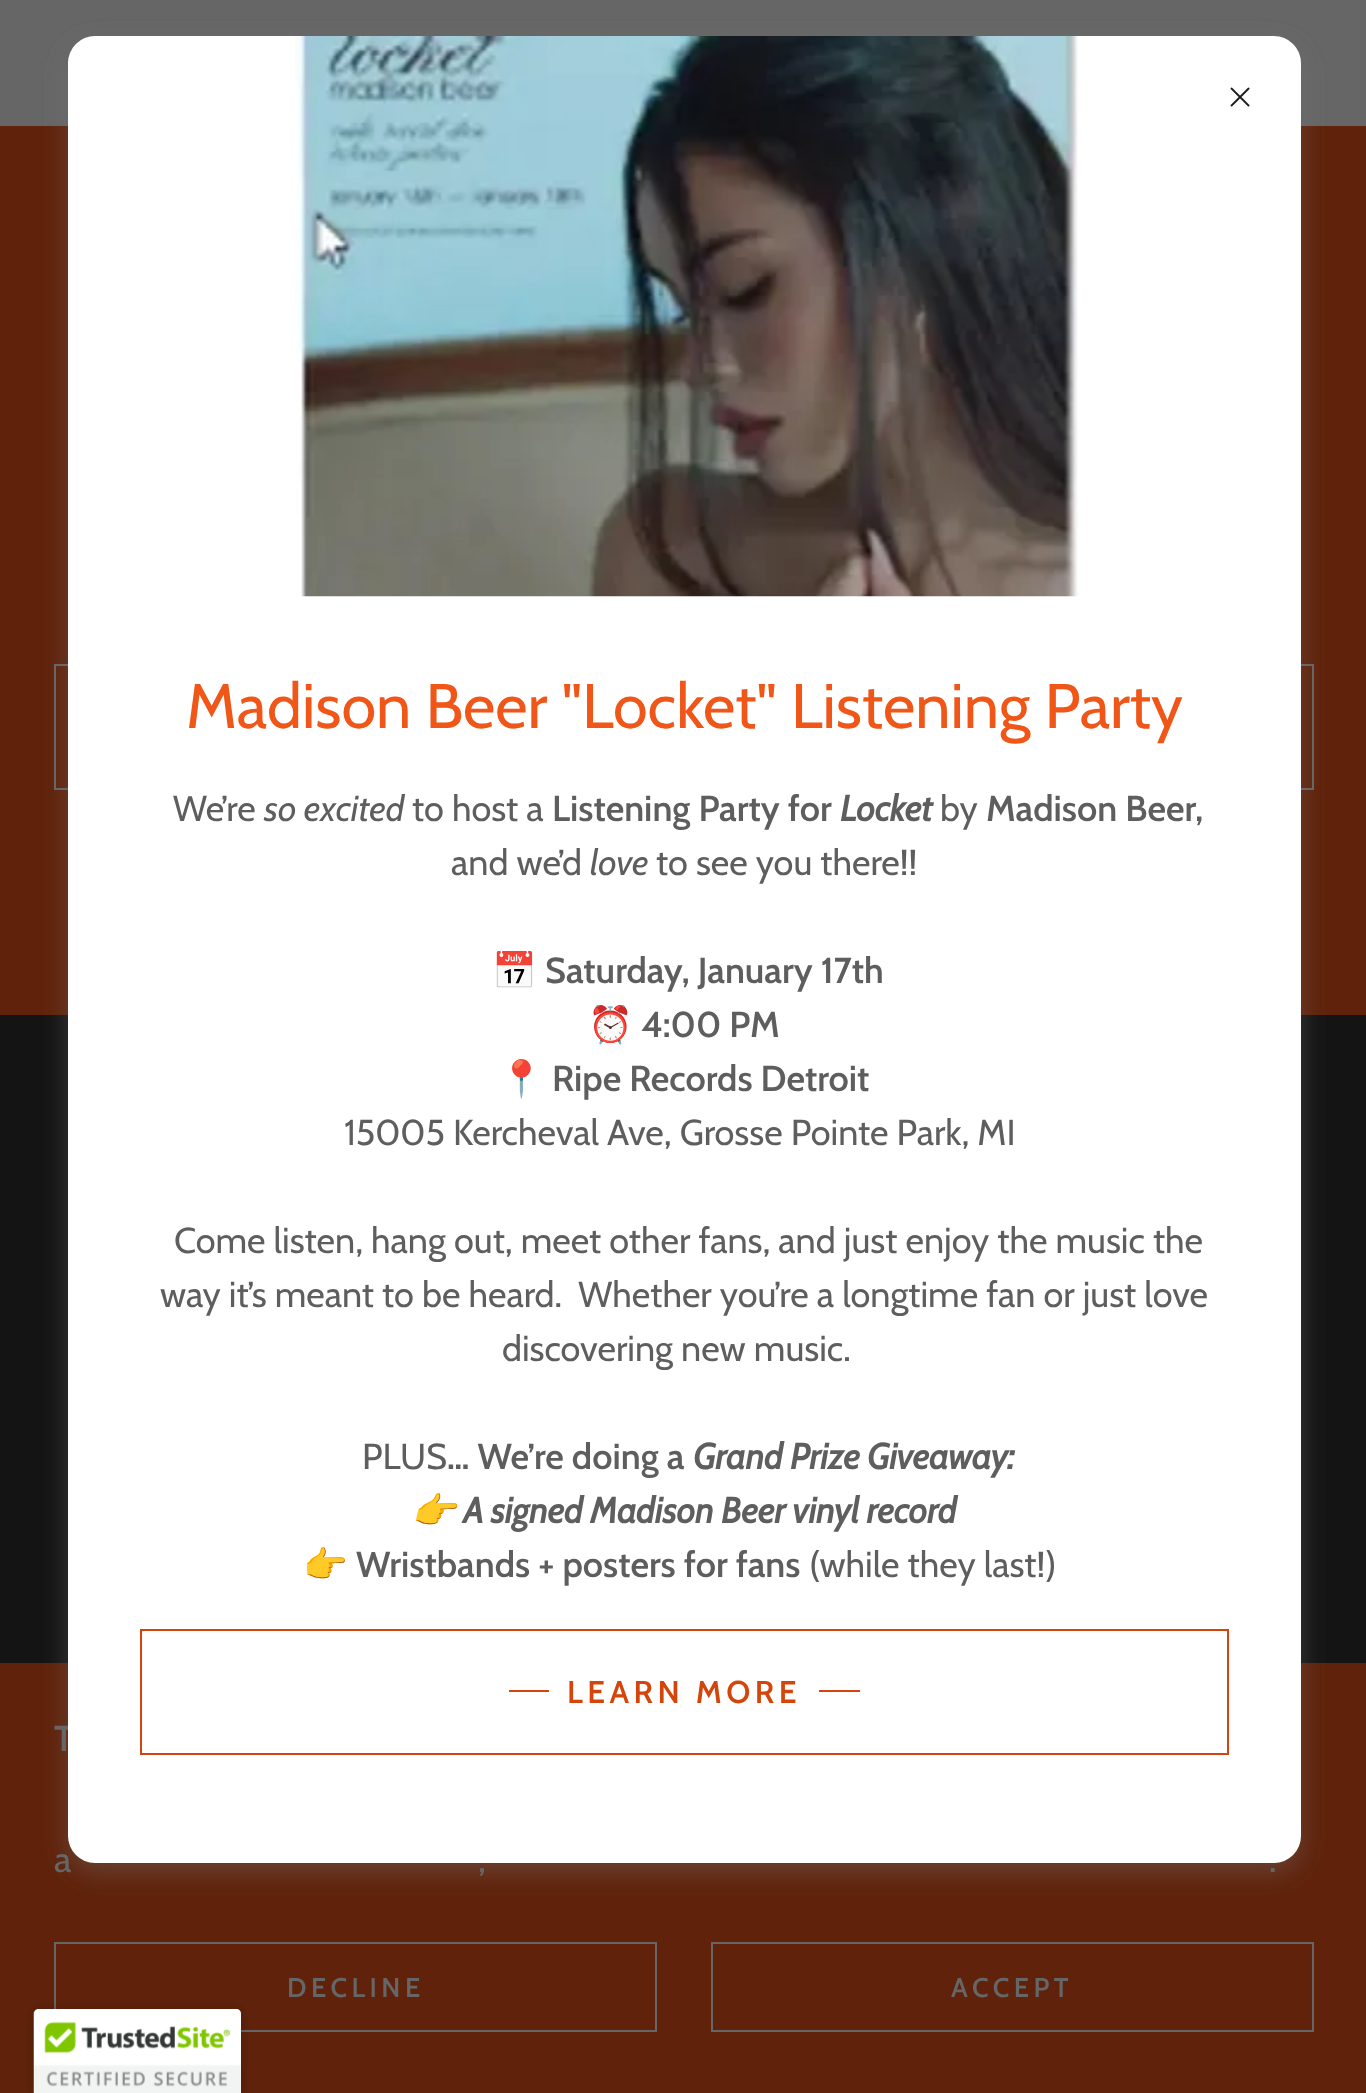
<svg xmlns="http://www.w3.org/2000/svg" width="1366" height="2093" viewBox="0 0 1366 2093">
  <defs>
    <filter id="blur1" x="-50%" y="-200%" width="200%" height="500%"><feGaussianBlur stdDeviation="13.5"/></filter>
    <filter id="blur2" x="-50%" y="-200%" width="200%" height="500%"><feGaussianBlur stdDeviation="5.5"/></filter>
  </defs>
  <rect width="100%" height="100%" fill="#141414"/>
  <rect x="0" y="126" width="1366" height="889" fill="#60220a"/>
  <rect x="0" y="0" width="1366" height="126" fill="#666666"/>
  <rect x="55" y="665" width="1258" height="124" fill="none" stroke="#666666" stroke-width="2"/>
  <rect x="0" y="1663" width="1366" height="430" fill="#60220a"/>
  <rect x="68" y="45" width="1233" height="1827" rx="27" fill="#757575" fill-opacity="0.4" filter="url(#blur1)"/>
  <text x="54" y="1751" font-family="Cabin" font-size="36" font-weight="600" fill="#666666">T</text>
  <text x="54" y="1872" font-family="Cabin" font-size="36" fill="#666666">a</text>
  <rect x="68" y="36" width="1233" height="1827" rx="27" fill="#ffffff"/>
  <image x="1230" y="87" width="20" height="20" href="img1.png"/>
  <image x="295" y="36" width="783" height="561" href="img2.png"/>
  <text x="186" y="728" font-family="Cabin" font-size="63" fill="#ef5618">Madison Beer "Locket" Listening Party</text>
  <text x="173" y="821" font-family="Cabin" font-size="36" fill="#5e5e5e">We’re</text>
  <text x="264" y="821" font-family="Cabin" font-size="36" font-style="italic" fill="#5e5e5e">so excited</text>
  <text x="412" y="821" font-family="Cabin" font-size="36" fill="#5e5e5e">to host a</text>
  <text x="552" y="821" font-family="Cabin" font-size="36" font-weight="600" fill="#5e5e5e">Listening Party for</text>
  <text x="840" y="821" font-family="Cabin" font-size="36" font-weight="bold" font-style="italic" fill="#5e5e5e">Locket</text>
  <text x="940" y="821" font-family="Cabin" font-size="36" fill="#5e5e5e">by</text>
  <text x="986" y="821" font-family="Cabin" font-size="36" font-weight="600" fill="#5e5e5e">Madison Beer,</text>
  <text x="451" y="875" font-family="Cabin" font-size="36" fill="#5e5e5e">and we’d</text>
  <text x="590" y="875" font-family="Cabin" font-size="36" font-style="italic" fill="#5e5e5e">love</text>
  <text x="656" y="875" font-family="Cabin" font-size="36" fill="#5e5e5e">to see you there!!</text>
  <text x="492" y="983" font-family="Noto Color Emoji" font-size="36" fill="#5e5e5e">📅</text>
  <text x="545" y="983" font-family="Cabin" font-size="36" font-weight="600" fill="#5e5e5e">Saturday, January 17th</text>
  <text x="588" y="1037" font-family="Noto Color Emoji" font-size="36" fill="#5e5e5e">⏰</text>
  <text x="641" y="1037" font-family="Cabin" font-size="36" font-weight="600" fill="#5e5e5e">4:00 PM</text>
  <text x="499" y="1091" font-family="Noto Color Emoji" font-size="36" fill="#5e5e5e">📍</text>
  <text x="552" y="1091" font-family="Cabin" font-size="36" font-weight="600" fill="#5e5e5e">Ripe Records Detroit</text>
  <text x="344" y="1145" font-family="Cabin" font-size="36" fill="#5e5e5e">15005 Kercheval Ave, Grosse Pointe Park, MI</text>
  <text x="174" y="1253" font-family="Cabin" font-size="36" fill="#5e5e5e">Come listen, hang out, meet other fans, and just enjoy the music the</text>
  <text x="160" y="1307" font-family="Cabin" font-size="36" fill="#5e5e5e" xml:space="preserve">way it’s meant to be heard.  Whether you’re a longtime fan or just love</text>
  <text x="502" y="1361" font-family="Cabin" font-size="36" fill="#5e5e5e">discovering new music.</text>
  <text x="362" y="1469" font-family="Cabin" font-size="36" fill="#5e5e5e">PLUS</text>
  <text x="447" y="1469" font-family="Cabin" font-size="36" font-weight="600" fill="#5e5e5e">… We’re doing a</text>
  <text x="693" y="1469" font-family="Cabin" font-size="36" font-weight="bold" font-style="italic" fill="#5e5e5e">Grand Prize Giveaway:</text>
  <text x="411" y="1523" font-family="Noto Color Emoji" font-size="36" font-weight="bold" font-style="italic" fill="#5e5e5e">👉</text>
  <text x="463" y="1523" font-family="Cabin" font-size="36" font-weight="bold" font-style="italic" fill="#5e5e5e">A signed Madison Beer vinyl record</text>
  <text x="303" y="1577" font-family="Noto Color Emoji" font-size="36" fill="#5e5e5e">👉</text>
  <text x="356" y="1577" font-family="Cabin" font-size="36" font-weight="600" fill="#5e5e5e">Wristbands + posters for fans</text>
  <text x="809" y="1577" font-family="Cabin" font-size="36" fill="#5e5e5e">(while they last!)</text>
  <rect x="141" y="1630" width="1087" height="124" fill="none" stroke="#d4450b" stroke-width="2"/>
  <rect x="509" y="1690" width="40" height="2" fill="#d4450b"/>
  <text x="567" y="1703" font-family="Cabin" font-size="31.5" font-weight="600" letter-spacing="4.5" fill="#d4450b">LEARN MORE</text>
  <rect x="819" y="1690" width="41" height="2" fill="#d4450b"/>
  <text x="478" y="1872" font-family="Cabin" font-size="36" fill="#666666">,</text>
  <text x="1269" y="1872" font-family="Cabin" font-size="36" fill="#666666">.</text>
  <rect x="55" y="1943" width="601" height="88" fill="none" stroke="#666666" stroke-width="2"/>
  <text x="287" y="1997" font-family="Cabin" font-size="27" font-weight="600" letter-spacing="4.5" fill="#666666">DECLINE</text>
  <rect x="712" y="1943" width="601" height="88" fill="none" stroke="#666666" stroke-width="2"/>
  <text x="951" y="1997" font-family="Cabin" font-size="27" font-weight="600" letter-spacing="4.5" fill="#666666">ACCEPT</text>
  <rect x="34" y="2009" width="207" height="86" rx="5" fill="#000000" fill-opacity="0.2" filter="url(#blur2)"/>
  <path d="M39 2009H236C239 2009 241 2011 241 2014V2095H34V2014C34 2011 36 2009 39 2009Z" fill="#ffffff"/>
  <image x="33" y="2009" width="208" height="84" href="img3.png"/>
</svg>
